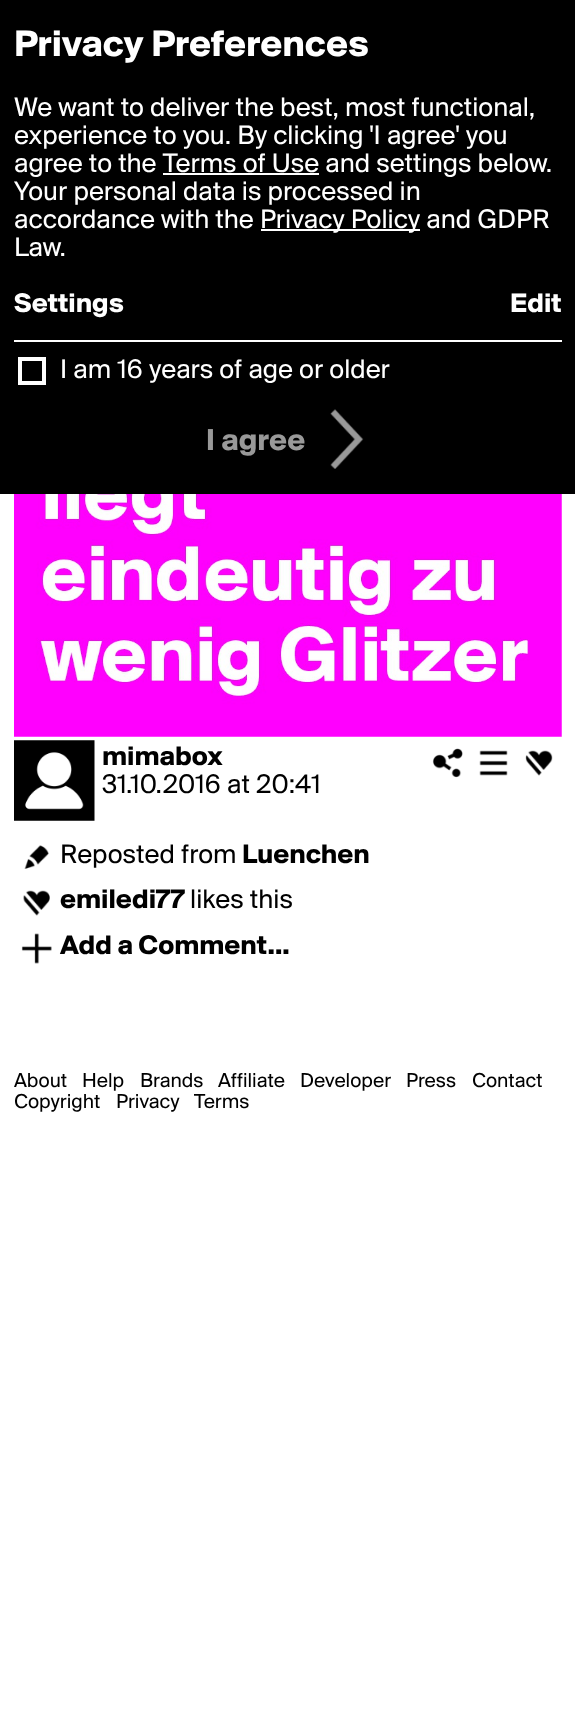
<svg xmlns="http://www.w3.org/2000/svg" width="575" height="1734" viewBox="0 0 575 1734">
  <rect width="100%" height="100%" fill="#ffffff"/>
  <rect x="0" y="0" width="575" height="494" fill="#000000"/>
  <text x="14" y="56" font-family="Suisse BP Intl" font-size="38.5" font-weight="bold" fill="#ffffff">Privacy Preferences</text>
  <text x="14" y="116" font-family="Suisse BP Intl" font-size="28" fill="#ffffff">We want to deliver the best, most functional,</text>
  <text x="14" y="144" font-family="Suisse BP Intl" font-size="28" fill="#ffffff">experience to you. By clicking 'I agree' you</text>
  <text x="14" y="172" font-family="Suisse BP Intl" font-size="28" fill="#ffffff">agree to the Terms of Use and settings below.</text>
  <rect x="163" y="173" width="156" height="2" fill="#ffffff"/>
  <text x="14" y="200" font-family="Suisse BP Intl" font-size="28" fill="#ffffff">Your personal data is processed in</text>
  <text x="14" y="228" font-family="Suisse BP Intl" font-size="28" fill="#ffffff">accordance with the</text>
  <rect x="261" y="229" width="159" height="2" fill="#ffffff"/>
  <text x="260" y="228" font-family="Suisse BP Intl" font-size="28" fill="#ffffff">Privacy Policy and GDPR</text>
  <text x="14" y="256" font-family="Suisse BP Intl" font-size="28" fill="#ffffff">Law.</text>
  <text x="14" y="312" font-family="Suisse BP Intl" font-size="28" font-weight="bold" fill="#ffffff">Settings</text>
  <text x="510" y="312" font-family="Suisse BP Intl" font-size="28" font-weight="bold" fill="#ffffff">Edit</text>
  <rect x="14" y="340" width="548" height="2" fill="#ffffff"/>
  <rect x="20" y="359" width="24" height="24" fill="none" stroke="#ffffff" stroke-width="4"/>
  <text x="60" y="378" font-family="Suisse BP Intl" font-size="28" fill="#ffffff">I am 16 years of age or older</text>
  <text x="206" y="450" font-family="Suisse BP Intl" font-size="31.5" font-weight="bold" fill="#999999">I agree</text>
  <image x="330" y="409" width="34" height="60" href="img1.png"/>
  <image x="14" y="494" width="548" height="243" href="img2.png"/>
  <image x="14" y="740" width="81" height="81" href="img3.png"/>
  <text x="102" y="765" font-family="Suisse BP Intl" font-size="28" font-weight="bold" fill="#000000">mimabox</text>
  <text x="102" y="793" font-family="Suisse BP Intl" font-size="28" fill="#000000">31.10.2016 at 20:41</text>
  <image x="432" y="748" width="31" height="30" href="img4.png"/>
  <image x="479" y="750" width="29" height="26" href="img5.png"/>
  <image x="525" y="750" width="28" height="26" href="img6.png"/>
  <image x="24" y="845" width="25" height="24" href="img7.png"/>
  <text x="60" y="863" font-family="Suisse BP Intl" font-size="28" fill="#000000">Reposted from</text>
  <text x="242" y="863" font-family="Suisse BP Intl" font-size="28" font-weight="bold" fill="#000000">Luenchen</text>
  <image x="23" y="890" width="27" height="26" href="img8.png"/>
  <text x="60" y="908" font-family="Suisse BP Intl" font-size="28" font-weight="bold" fill="#000000">emiledi77</text>
  <text x="190" y="908" font-family="Suisse BP Intl" font-size="28" fill="#000000">likes this</text>
  <image x="21" y="933" width="31" height="31" href="img9.png"/>
  <text x="60" y="954" font-family="Suisse BP Intl" font-size="28" font-weight="bold" fill="#000000">Add a Comment...</text>
  <text x="14" y="1087" font-family="Suisse BP Intl" font-size="21" fill="#000000">About</text>
  <text x="82" y="1087" font-family="Suisse BP Intl" font-size="21" fill="#000000">Help</text>
  <text x="140" y="1087" font-family="Suisse BP Intl" font-size="21" fill="#000000">Brands</text>
  <text x="218" y="1087" font-family="Suisse BP Intl" font-size="21" fill="#000000">Affiliate</text>
  <text x="300" y="1087" font-family="Suisse BP Intl" font-size="21" fill="#000000">Developer</text>
  <text x="406" y="1087" font-family="Suisse BP Intl" font-size="21" fill="#000000">Press</text>
  <text x="472" y="1087" font-family="Suisse BP Intl" font-size="21" fill="#000000">Contact</text>
  <text x="14" y="1108" font-family="Suisse BP Intl" font-size="21" fill="#000000">Copyright</text>
  <text x="116" y="1108" font-family="Suisse BP Intl" font-size="21" fill="#000000">Privacy</text>
  <text x="194" y="1108" font-family="Suisse BP Intl" font-size="21" fill="#000000">Terms</text>
</svg>
